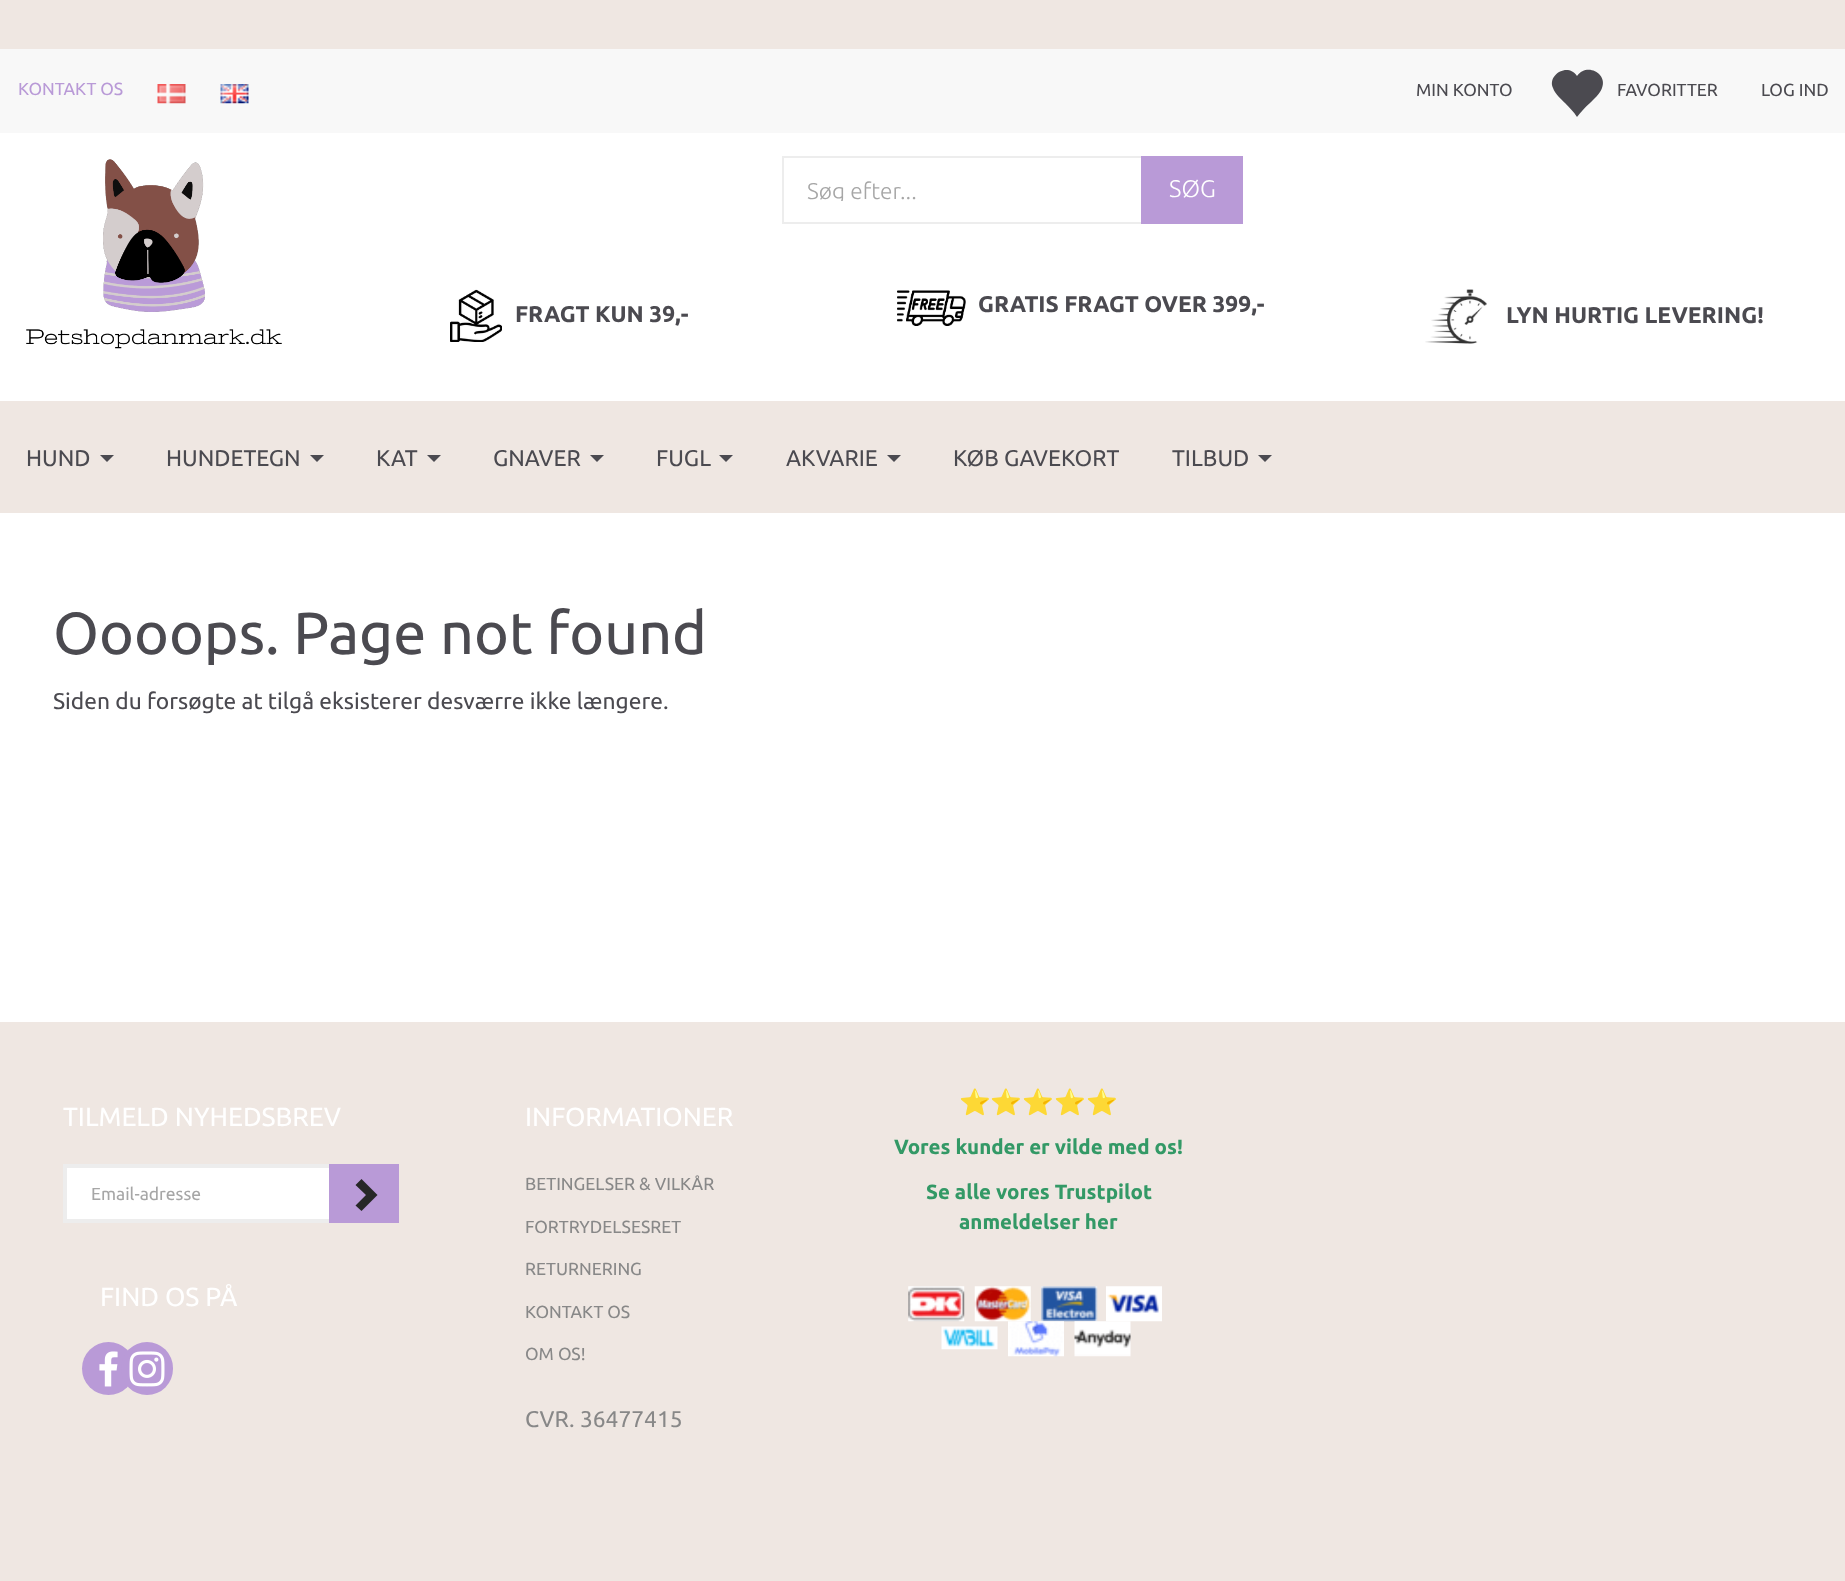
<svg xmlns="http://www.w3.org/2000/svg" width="1845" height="1581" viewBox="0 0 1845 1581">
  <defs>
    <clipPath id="clip1"><rect x="807" y="177" width="310" height="24"/></clipPath>
  </defs>
  <rect width="100%" height="100%" fill="#ffffff"/>
  <rect x="0" y="0" width="1845" height="49" fill="#efe7e2"/>
  <rect x="0" y="49" width="1845" height="84" fill="#f8f8f8"/>
  <text x="18" y="95" font-family="Ubuntu" font-size="17.5" fill="#b99ad7">KONTAKT OS</text>
  <image x="157" y="84" width="29" height="20" href="img1.png"/>
  <image x="220" y="84" width="29" height="20" href="img2.png"/>
  <text x="1416" y="96" font-family="Ubuntu" font-size="17.5" fill="#4b4a50">MIN KONTO</text>
  <path d="M1577 76C1587 62 1608 74 1602 88C1600 94 1594 99 1590 103C1585 107 1581 112 1577 117C1574 112 1569 107 1565 103C1561 99 1555 94 1553 88C1547 75 1568 62 1577 76Z" fill="#4b4a50"/>
  <text x="1617" y="96" font-family="Ubuntu" font-size="17.5" fill="#4b4a50">FAVORITTER</text>
  <text x="1761" y="96" font-family="Ubuntu" font-size="17.5" fill="#4b4a50">LOG IND</text>
  <image x="26" y="159" width="256" height="190" href="img3.png"/>
  <rect x="783" y="157" width="359" height="66" fill="none" stroke="#ededed" stroke-width="2"/>
  <g clip-path="url(#clip1)">
    <text x="807" y="199" font-family="Ubuntu" font-size="22.75" font-weight="300" fill="#a6a6a6">Søg efter...</text>
  </g>
  <rect x="1141" y="156" width="102" height="68" fill="#b99ad7"/>
  <text x="1169" y="197" font-family="Ubuntu" font-size="24" font-weight="300" fill="#ffffff">SØG</text>
  <image x="450" y="289" width="52" height="53" href="img4.png"/>
  <text x="515" y="322" font-family="Ubuntu" font-size="22.75" font-weight="bold" fill="#4b4a50">FRAGT KUN 39,-</text>
  <image x="897" y="290" width="69" height="36" href="img5.png"/>
  <text x="978" y="312" font-family="Ubuntu" font-size="22.75" font-weight="bold" fill="#4b4a50">GRATIS FRAGT OVER 399,-</text>
  <image x="1425" y="289" width="62" height="55" href="img6.png"/>
  <text x="1506" y="323" font-family="Ubuntu" font-size="22.75" font-weight="bold" fill="#4b4a50">LYN HURTIG LEVERING!</text>
  <rect x="0" y="401" width="1845" height="112" fill="#efe7e2"/>
  <text x="26" y="466" font-family="Ubuntu" font-size="22.75" fill="#4b4a50">HUND</text>
  <path d="M100 455H114L107 462Z" fill="#4b4a50"/>
  <text x="166" y="466" font-family="Ubuntu" font-size="22.75" fill="#4b4a50">HUNDETEGN</text>
  <path d="M310 455H324L317 462Z" fill="#4b4a50"/>
  <text x="376" y="466" font-family="Ubuntu" font-size="22.75" fill="#4b4a50">KAT</text>
  <path d="M427 455H441L434 462Z" fill="#4b4a50"/>
  <text x="493" y="466" font-family="Ubuntu" font-size="22.75" fill="#4b4a50">GNAVER</text>
  <path d="M590 455H604L597 462Z" fill="#4b4a50"/>
  <text x="656" y="466" font-family="Ubuntu" font-size="22.75" fill="#4b4a50">FUGL</text>
  <path d="M719 455H733L726 462Z" fill="#4b4a50"/>
  <text x="786" y="466" font-family="Ubuntu" font-size="22.75" fill="#4b4a50">AKVARIE</text>
  <path d="M887 455H901L894 462Z" fill="#4b4a50"/>
  <text x="953" y="466" font-family="Ubuntu" font-size="22.75" fill="#4b4a50">KØB GAVEKORT</text>
  <text x="1172" y="466" font-family="Ubuntu" font-size="22.75" fill="#4b4a50">TILBUD</text>
  <path d="M1258 455H1272L1265 462Z" fill="#4b4a50"/>
  <text x="53" y="654" font-family="Ubuntu" font-size="59.2" fill="#4b4a50">Oooops. Page not found</text>
  <text x="53" y="709" font-family="Ubuntu" font-size="22.75" fill="#4b4a50">Siden du forsøgte at tilgå eksisterer desværre ikke længere.</text>
  <rect x="0" y="1022" width="1845" height="559" fill="#efe7e2"/>
  <text x="63" y="1126" font-family="Ubuntu" font-size="26.25" fill="#ffffff">TILMELD NYHEDSBREV</text>
  <rect x="67" y="1168" width="262" height="51" fill="#ffffff"/>
  <rect x="65" y="1166" width="332" height="55" fill="none" stroke="#ededed" stroke-width="4"/>
  <text x="91" y="1200" font-family="Ubuntu" font-size="17.5" fill="#a6a6a6">Email-adresse</text>
  <rect x="329" y="1164" width="70" height="59" fill="#b99ad7"/>
  <path d="M377.5 1195L361.5 1211L355.5 1205.5L366 1195L355.5 1185L361.5 1179Z" fill="#272727"/>
  <text x="100" y="1306" font-family="Ubuntu" font-size="26.25" fill="#ffffff">FIND OS PÅ</text>
  <circle cx="108.5" cy="1368.5" r="26.5" fill="#b99ad7"/>
  <image x="99" y="1351" width="19" height="36" href="img7.png"/>
  <rect x="121" y="1342" width="52" height="53" rx="26" fill="#b99ad7"/>
  <image x="129" y="1351" width="36" height="36" href="img8.png"/>
  <text x="525" y="1126" font-family="Ubuntu" font-size="26.25" fill="#ffffff">INFORMATIONER</text>
  <text x="525" y="1190" font-family="Ubuntu" font-size="17.5" fill="#888888">BETINGELSER &amp; VILKÅR</text>
  <text x="525" y="1233" font-family="Ubuntu" font-size="17.5" fill="#888888">FORTRYDELSESRET</text>
  <text x="525" y="1275" font-family="Ubuntu" font-size="17.5" fill="#888888">RETURNERING</text>
  <text x="525" y="1318" font-family="Ubuntu" font-size="17.5" fill="#888888">KONTAKT OS</text>
  <text x="525" y="1360" font-family="Ubuntu" font-size="17.5" fill="#888888">OM OS!</text>
  <text x="525" y="1427" font-family="Ubuntu" font-size="22.75" fill="#888888">CVR. 36477415</text>
  <text x="959" y="1111" font-family="Noto Color Emoji" font-size="25.5" fill="#888888">⭐⭐⭐⭐⭐</text>
  <text x="894" y="1154" font-family="Ubuntu" font-size="20.5" font-weight="bold" fill="#339966">Vores kunder er vilde med os!</text>
  <text x="926" y="1199" font-family="Ubuntu" font-size="20.5" font-weight="bold" fill="#339966">Se alle vores Trustpilot</text>
  <text x="959" y="1229" font-family="Ubuntu" font-size="20.5" font-weight="bold" fill="#339966">anmeldelser her</text>
  <image x="908" y="1286" width="57" height="36" href="img9.png"/>
  <image x="974" y="1286" width="57" height="36" href="img10.png"/>
  <image x="1041" y="1286" width="57" height="36" href="img11.png"/>
  <image x="1106" y="1286" width="56" height="36" href="img12.png"/>
  <image x="941" y="1326" width="57" height="24" href="img13.png"/>
  <image x="1008" y="1321" width="56" height="36" href="img14.png"/>
  <image x="1074" y="1321" width="57" height="36" href="img15.png"/>
</svg>
